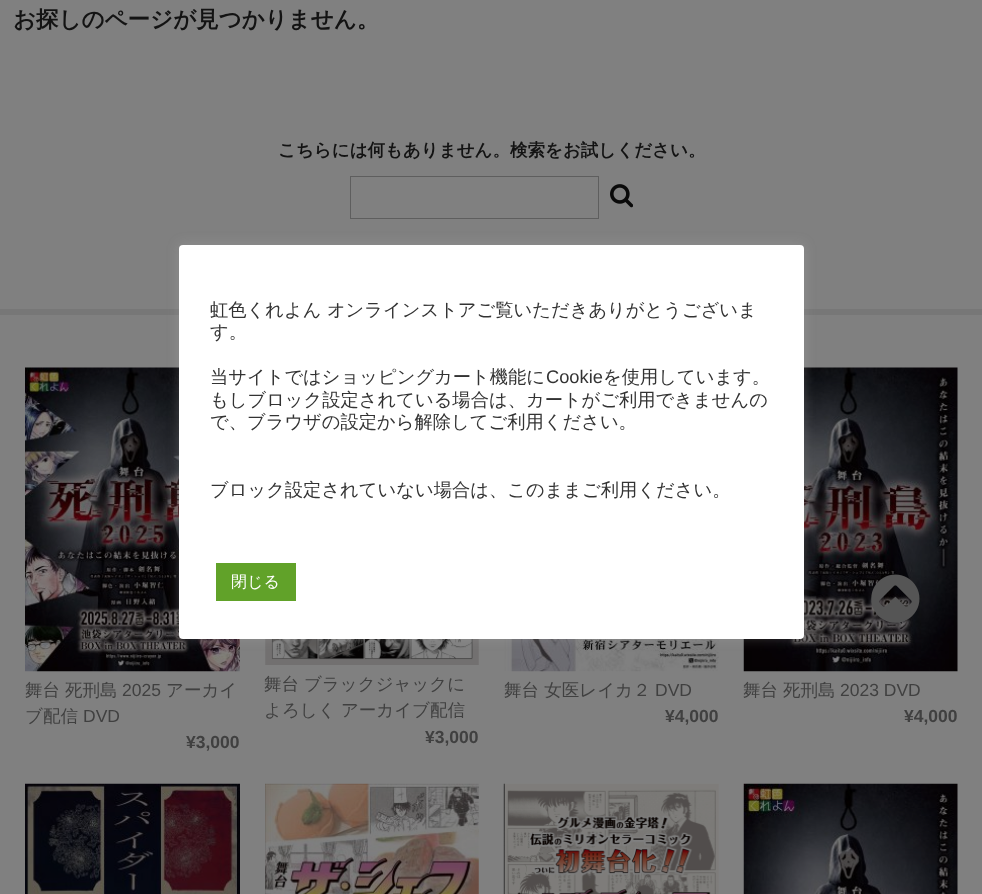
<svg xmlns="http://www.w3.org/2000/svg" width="982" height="894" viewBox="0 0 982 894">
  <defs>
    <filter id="blur1" x="-50%" y="-200%" width="200%" height="500%"><feGaussianBlur stdDeviation="6"/></filter>
  </defs>
  <rect width="100%" height="100%" fill="#808080"/>
  <text x="13" y="27" font-family="WenQuanYi Zen Hei" font-size="22.5" font-weight="bold" fill="#131313">お探しのページが見つかりません。</text>
  <text x="278" y="156" font-family="WenQuanYi Zen Hei" font-size="17.5" font-weight="bold" fill="#131313">こちらには何もありません。検索をお試しください。</text>
  <rect x="350.5" y="176.5" width="248" height="42" fill="none" stroke="#5e5e5e"/>
  <image x="610" y="184" width="23" height="24" href="img1.png"/>
  <rect x="0" y="309" width="982" height="6" fill="#777777"/>
  <image x="25" y="367" width="215" height="305" href="img2.png"/>
  <text x="25" y="696" font-family="WenQuanYi Zen Hei" font-size="17.5" font-weight="500" fill="#404040">舞台</text>
  <text x="65" y="696" font-family="WenQuanYi Zen Hei" font-size="17.5" font-weight="500" fill="#404040">死刑島</text>
  <text x="122" y="696" font-family="Liberation Sans" font-size="17.5" fill="#404040">2025</text>
  <text x="166" y="696" font-family="WenQuanYi Zen Hei" font-size="17.5" font-weight="500" fill="#404040">アーカイ</text>
  <text x="25" y="722" font-family="WenQuanYi Zen Hei" font-size="17.5" font-weight="500" fill="#404040">ブ配信</text>
  <text x="83" y="722" font-family="Liberation Sans" font-size="17.5" fill="#404040">DVD</text>
  <text x="186" y="748" font-family="Liberation Sans" font-size="17.5" font-weight="bold" fill="#404040">¥3,000</text>
  <image x="265" y="639" width="214" height="26" href="img3.png"/>
  <text x="264" y="690" font-family="WenQuanYi Zen Hei" font-size="17.5" font-weight="500" fill="#404040">舞台</text>
  <text x="304" y="690" font-family="WenQuanYi Zen Hei" font-size="17.5" font-weight="500" fill="#404040">ブラックジャックに</text>
  <text x="264" y="716" font-family="WenQuanYi Zen Hei" font-size="17.5" font-weight="500" fill="#404040">よろしく アーカイブ配信</text>
  <text x="425" y="743" font-family="Liberation Sans" font-size="17.5" font-weight="bold" fill="#404040">¥3,000</text>
  <image x="503" y="639" width="216" height="33" href="img4.png"/>
  <text x="504" y="696" font-family="WenQuanYi Zen Hei" font-size="17.5" font-weight="500" fill="#404040">舞台 女医レイカ２</text>
  <text x="655" y="696" font-family="Liberation Sans" font-size="17.5" fill="#404040">DVD</text>
  <text x="665" y="722" font-family="Liberation Sans" font-size="17.5" font-weight="bold" fill="#404040">¥4,000</text>
  <image x="743" y="367" width="215" height="305" href="img5.png"/>
  <text x="743" y="696" font-family="WenQuanYi Zen Hei" font-size="17.5" font-weight="500" fill="#404040">舞台</text>
  <text x="783" y="696" font-family="WenQuanYi Zen Hei" font-size="17.5" font-weight="500" fill="#404040">死刑島</text>
  <text x="840" y="696" font-family="Liberation Sans" font-size="17.5" fill="#404040">2023 DVD</text>
  <text x="904" y="722" font-family="Liberation Sans" font-size="17.5" font-weight="bold" fill="#404040">¥4,000</text>
  <image x="25" y="783" width="215" height="111" href="img6.png"/>
  <image x="265" y="783" width="214" height="111" href="img7.png"/>
  <image x="503" y="783" width="216" height="111" href="img8.png"/>
  <image x="743" y="783" width="215" height="111" href="img9.png"/>
  <rect x="179" y="244" width="625" height="394" rx="4" fill="#acabab" fill-opacity="0.3" filter="url(#blur1)"/>
  <rect x="179" y="245" width="625" height="394" rx="4" fill="#ffffff"/>
  <text x="210" y="316" font-family="WenQuanYi Zen Hei" font-size="18.3" font-weight="500" fill="#333333">虹色くれよん オンラインストアご覧いただきありがとうございま</text>
  <text x="210" y="338" font-family="WenQuanYi Zen Hei" font-size="18.3" font-weight="500" fill="#333333">す。</text>
  <text x="210" y="383" font-family="WenQuanYi Zen Hei" font-size="18.3" font-weight="500" fill="#333333">当サイトではショッピングカート機能に</text>
  <text x="546" y="383" font-family="Liberation Sans" font-size="18.3" fill="#333333">Cookie</text>
  <text x="603" y="383" font-family="WenQuanYi Zen Hei" font-size="18.3" font-weight="500" fill="#333333">を使用しています。</text>
  <text x="210" y="406" font-family="WenQuanYi Zen Hei" font-size="18.3" font-weight="500" fill="#333333">もしブロック設定されている場合は、カートがご利用できませんの</text>
  <text x="210" y="428" font-family="WenQuanYi Zen Hei" font-size="18.3" font-weight="500" fill="#333333">で、ブラウザの設定から解除してご利用ください。</text>
  <text x="210" y="496" font-family="WenQuanYi Zen Hei" font-size="18.3" font-weight="500" fill="#333333">ブロック設定されていない場合は、このままご利用ください。</text>
  <rect x="216" y="563" width="80" height="38" fill="#61a229"/>
  <text x="231" y="587" font-family="WenQuanYi Zen Hei" font-size="16" font-weight="500" fill="#ffffff">閉じる</text>
  <image x="871" y="574" width="49" height="49" href="img10.png"/>
</svg>
